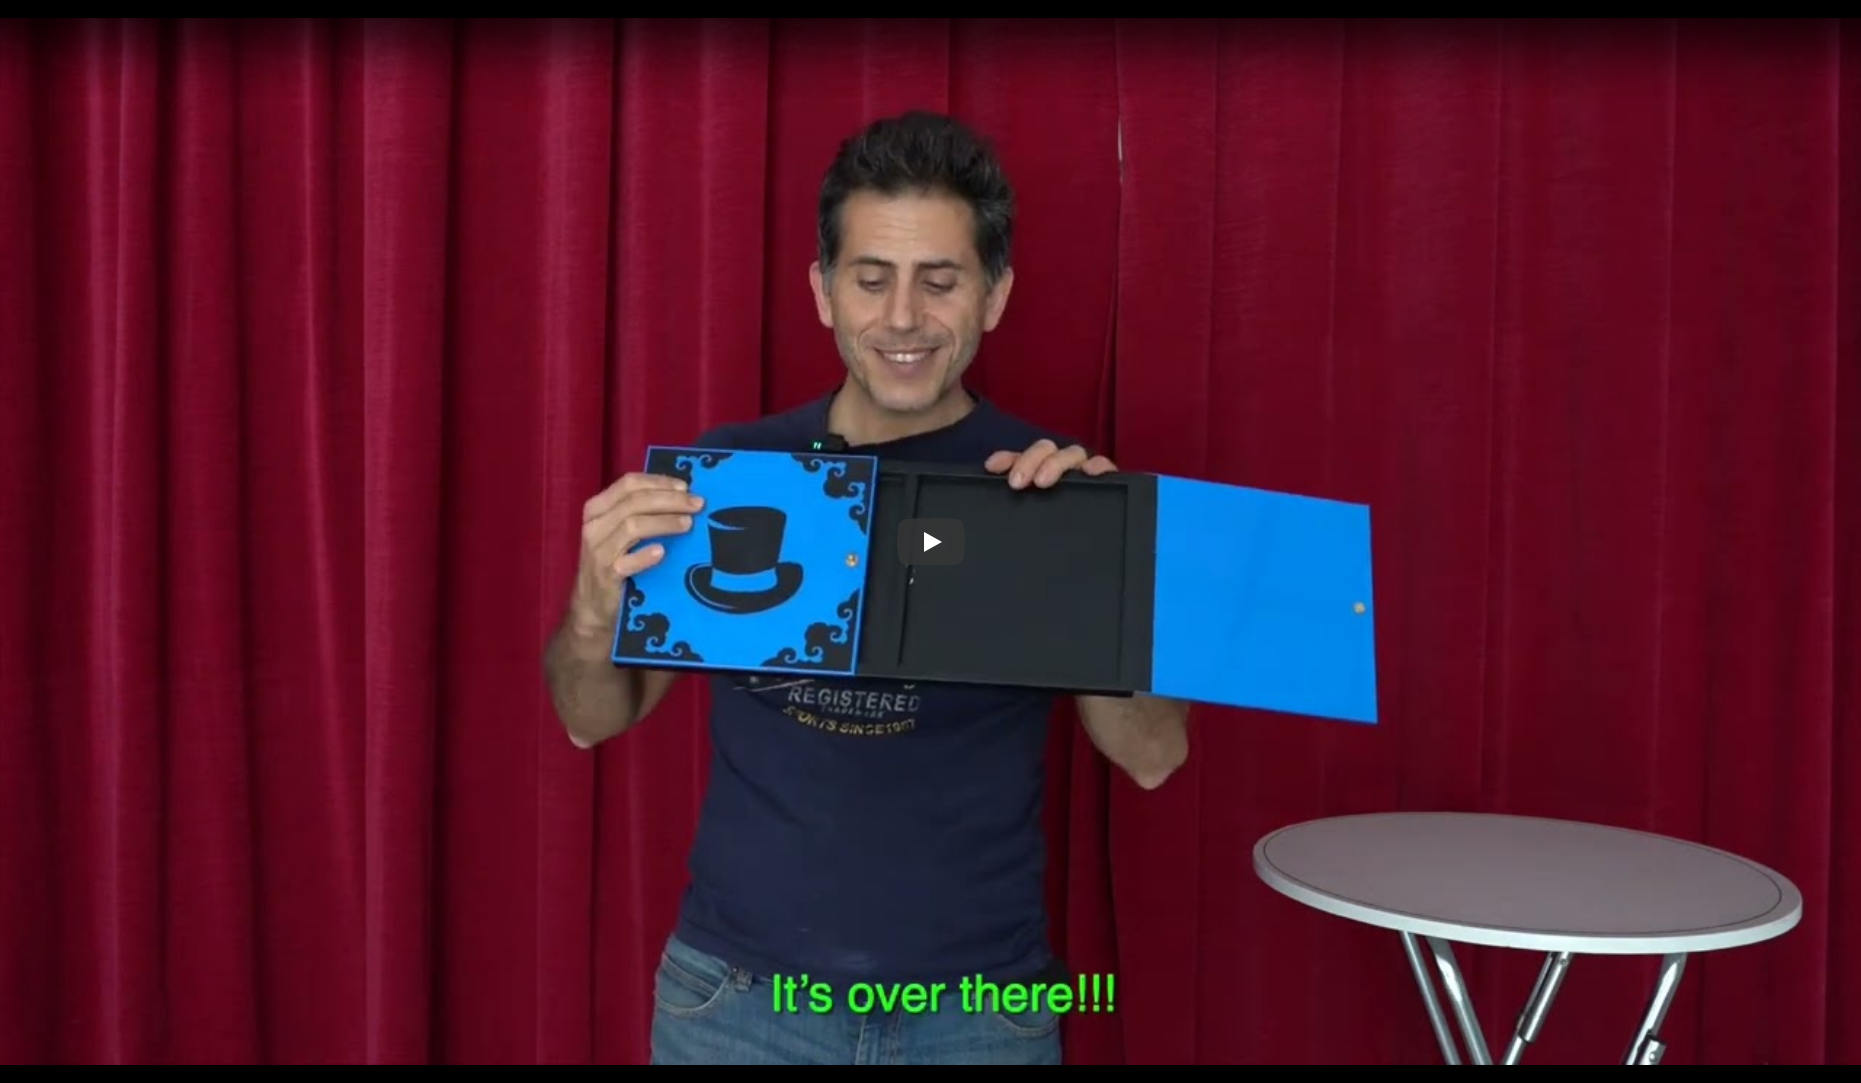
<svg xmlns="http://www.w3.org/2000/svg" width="1861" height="1083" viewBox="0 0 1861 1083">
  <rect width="100%" height="100%" fill="#000000"/>
  <image x="0" y="18" width="1861" height="1047" href="img1.png"/>
  <image x="0" y="18" width="1861" height="80" href="img2.png"/>
  <image x="897" y="518" width="68" height="47" href="img3.png"/>
</svg>
